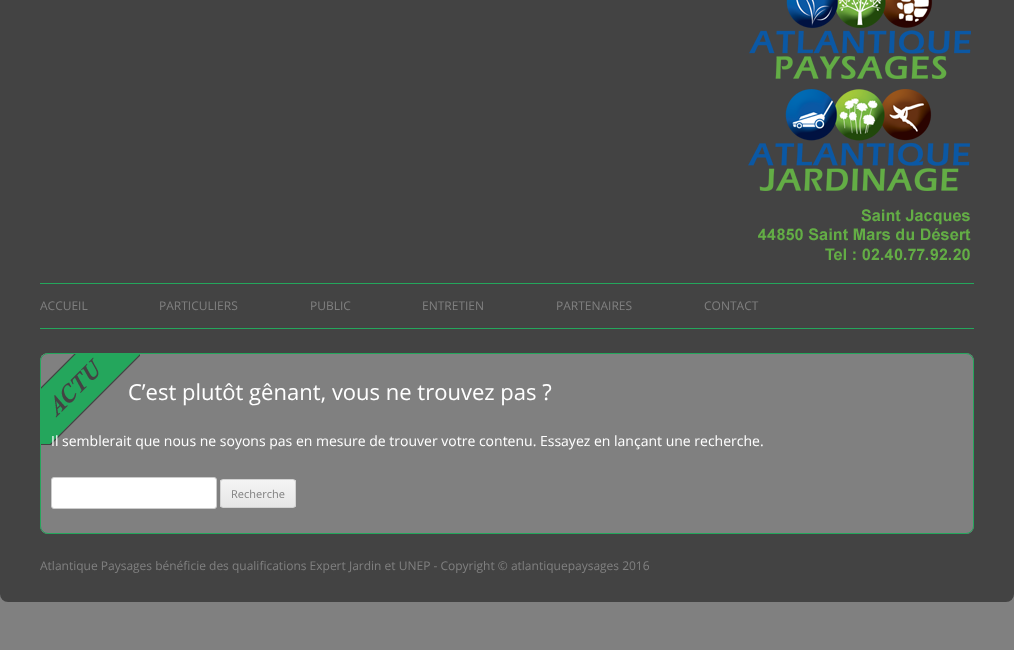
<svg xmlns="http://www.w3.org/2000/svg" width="1014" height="650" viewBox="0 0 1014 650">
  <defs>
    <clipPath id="clip1"><rect x="220" y="479" width="76" height="29" rx="3"/></clipPath>
    <linearGradient id="g1" gradientUnits="userSpaceOnUse" x1="258" y1="480" x2="258" y2="507"><stop offset="0" stop-color="#f4f4f4"/><stop offset="1" stop-color="#e6e6e6"/></linearGradient>
  </defs>
  <rect width="100%" height="100%" fill="#808080"/>
  <rect x="0" y="-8" width="1014" height="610" rx="8" fill="#434343"/>
  <image x="748" y="0" width="223" height="261" href="img1.png"/>
  <rect x="40" y="283" width="934" height="1" fill="#24a65c"/>
  <rect x="40" y="328" width="934" height="1" fill="#24a65c"/>
  <text x="40" y="310" font-family="Open Sans" font-size="12" fill="#808080">ACCUEIL</text>
  <text x="159" y="310" font-family="Open Sans" font-size="12" fill="#808080">PARTICULIERS</text>
  <text x="310" y="310" font-family="Open Sans" font-size="12" fill="#808080">PUBLIC</text>
  <text x="422" y="310" font-family="Open Sans" font-size="12" fill="#808080">ENTRETIEN</text>
  <text x="556" y="310" font-family="Open Sans" font-size="12" fill="#808080">PARTENAIRES</text>
  <text x="704" y="310" font-family="Open Sans" font-size="12" fill="#808080">CONTACT</text>
  <rect x="40" y="353" width="934" height="181" rx="8" fill="#808080"/>
  <image x="41" y="354" width="99" height="91" href="img2.png"/>
  <rect x="40.5" y="353.5" width="933" height="180" rx="7.5" fill="none" stroke="#24a65c"/>
  <text x="128" y="400" font-family="Open Sans" font-size="22" fill="#ffffff">C’est plutôt gênant, vous ne trouvez pas ?</text>
  <text x="51" y="446" font-family="Open Sans" font-size="14" fill="#ffffff">Il semblerait que nous ne soyons pas en mesure de trouver votre contenu. Essayez en lançant une recherche.</text>
  <rect x="51.5" y="477.5" width="165" height="31" rx="2.5" fill="#ffffff" stroke="#cccccc"/>
  <g clip-path="url(#clip1)">
    <rect x="220" y="480" width="76" height="27" fill="url(#g1)"/>
  </g>
  <rect x="220.5" y="479.5" width="75" height="28" rx="2.5" fill="none" stroke="#d2d2d2"/>
  <text x="231" y="498" font-family="Open Sans" font-size="11" fill="#808080">Recherche</text>
  <text x="40" y="570" font-family="Open Sans" font-size="12" fill="#808080">Atlantique Paysages bénéficie des qualifications Expert Jardin et UNEP - Copyright © atlantiquepaysages 2016</text>
</svg>
